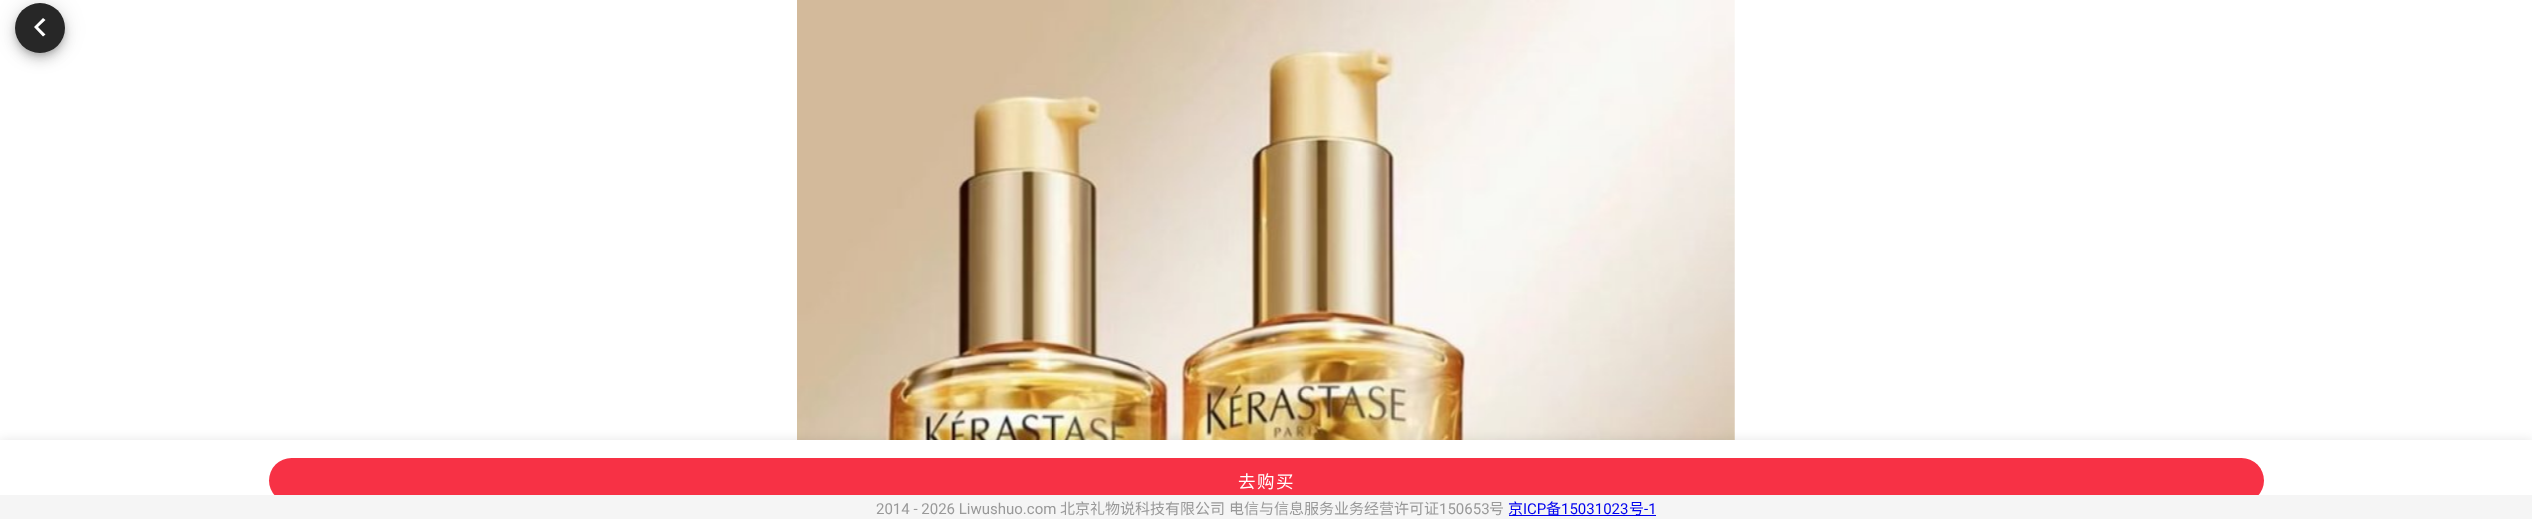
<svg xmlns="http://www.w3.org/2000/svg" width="2532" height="519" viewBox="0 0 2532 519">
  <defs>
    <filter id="blur1" x="-50%" y="-200%" width="200%" height="500%"><feGaussianBlur stdDeviation="11"/></filter>
    <filter id="blur2" x="-50%" y="-200%" width="200%" height="500%"><feGaussianBlur stdDeviation="6"/></filter>
    <filter id="blur3" x="-50%" y="-200%" width="200%" height="500%"><feGaussianBlur stdDeviation="3"/></filter>
  </defs>
  <rect width="100%" height="100%" fill="#ffffff"/>
  <rect x="15" y="4" width="50" height="50" rx="25" fill="#000000" fill-opacity="0.12" filter="url(#blur1)"/>
  <rect x="15" y="10" width="50" height="50" rx="25" fill="#000000" fill-opacity="0.14" filter="url(#blur2)"/>
  <rect x="16" y="8" width="48" height="47" rx="23.5" fill="#000000" fill-opacity="0.2" filter="url(#blur3)"/>
  <circle cx="40" cy="28" r="25" fill="#272727"/>
  <path d="M45.5 34.5L38 27L45.5 20L43 18L34 27L43 36.5Z" fill="#ffffff"/>
  <image x="797" y="0" width="938" height="440" href="img1.png"/>
  <rect x="0" y="441" width="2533" height="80" fill="#000000" fill-opacity="0.12" filter="url(#blur2)"/>
  <rect x="0" y="440" width="2532" height="55" fill="#ffffff"/>
  <rect x="269" y="458" width="1995" height="45" rx="22.5" fill="#f73145"/>
  <text x="1238" y="488" font-family="Noto Sans CJK SC" font-size="17.5" letter-spacing="1.5" fill="#ffffff">去购买</text>
  <rect x="0" y="495" width="2532" height="24" fill="#f5f5f5"/>
  <text x="876" y="514" font-family="Roboto" font-size="15" fill="#999999">2014 - 2026 Liwushuo.com</text>
  <text x="1060" y="514" font-family="Noto Sans CJK SC" font-size="15" fill="#999999">北京礼物说科技有限公司</text>
  <text x="1229" y="514" font-family="Noto Sans CJK SC" font-size="15" fill="#999999">电信与信息服务业务经营许可证</text>
  <text x="1439" y="514" font-family="Roboto" font-size="15" fill="#999999">150653</text>
  <text x="1489" y="514" font-family="Noto Sans CJK SC" font-size="15" fill="#999999">号</text>
  <rect x="1509" y="515" width="147" height="1" fill="#0000ee"/>
  <text x="1508" y="514" font-family="Noto Sans CJK SC" font-size="15" fill="#0000ee">京</text>
  <text x="1523" y="514" font-family="Roboto" font-size="15" fill="#0000ee">ICP</text>
  <text x="1546" y="514" font-family="Noto Sans CJK SC" font-size="15" fill="#0000ee">备</text>
  <text x="1561" y="514" font-family="Roboto" font-size="15" fill="#0000ee">15031023</text>
  <text x="1629" y="514" font-family="Noto Sans CJK SC" font-size="15" fill="#0000ee">号</text>
  <text x="1644" y="514" font-family="Roboto" font-size="15" fill="#0000ee">-1</text>
</svg>
